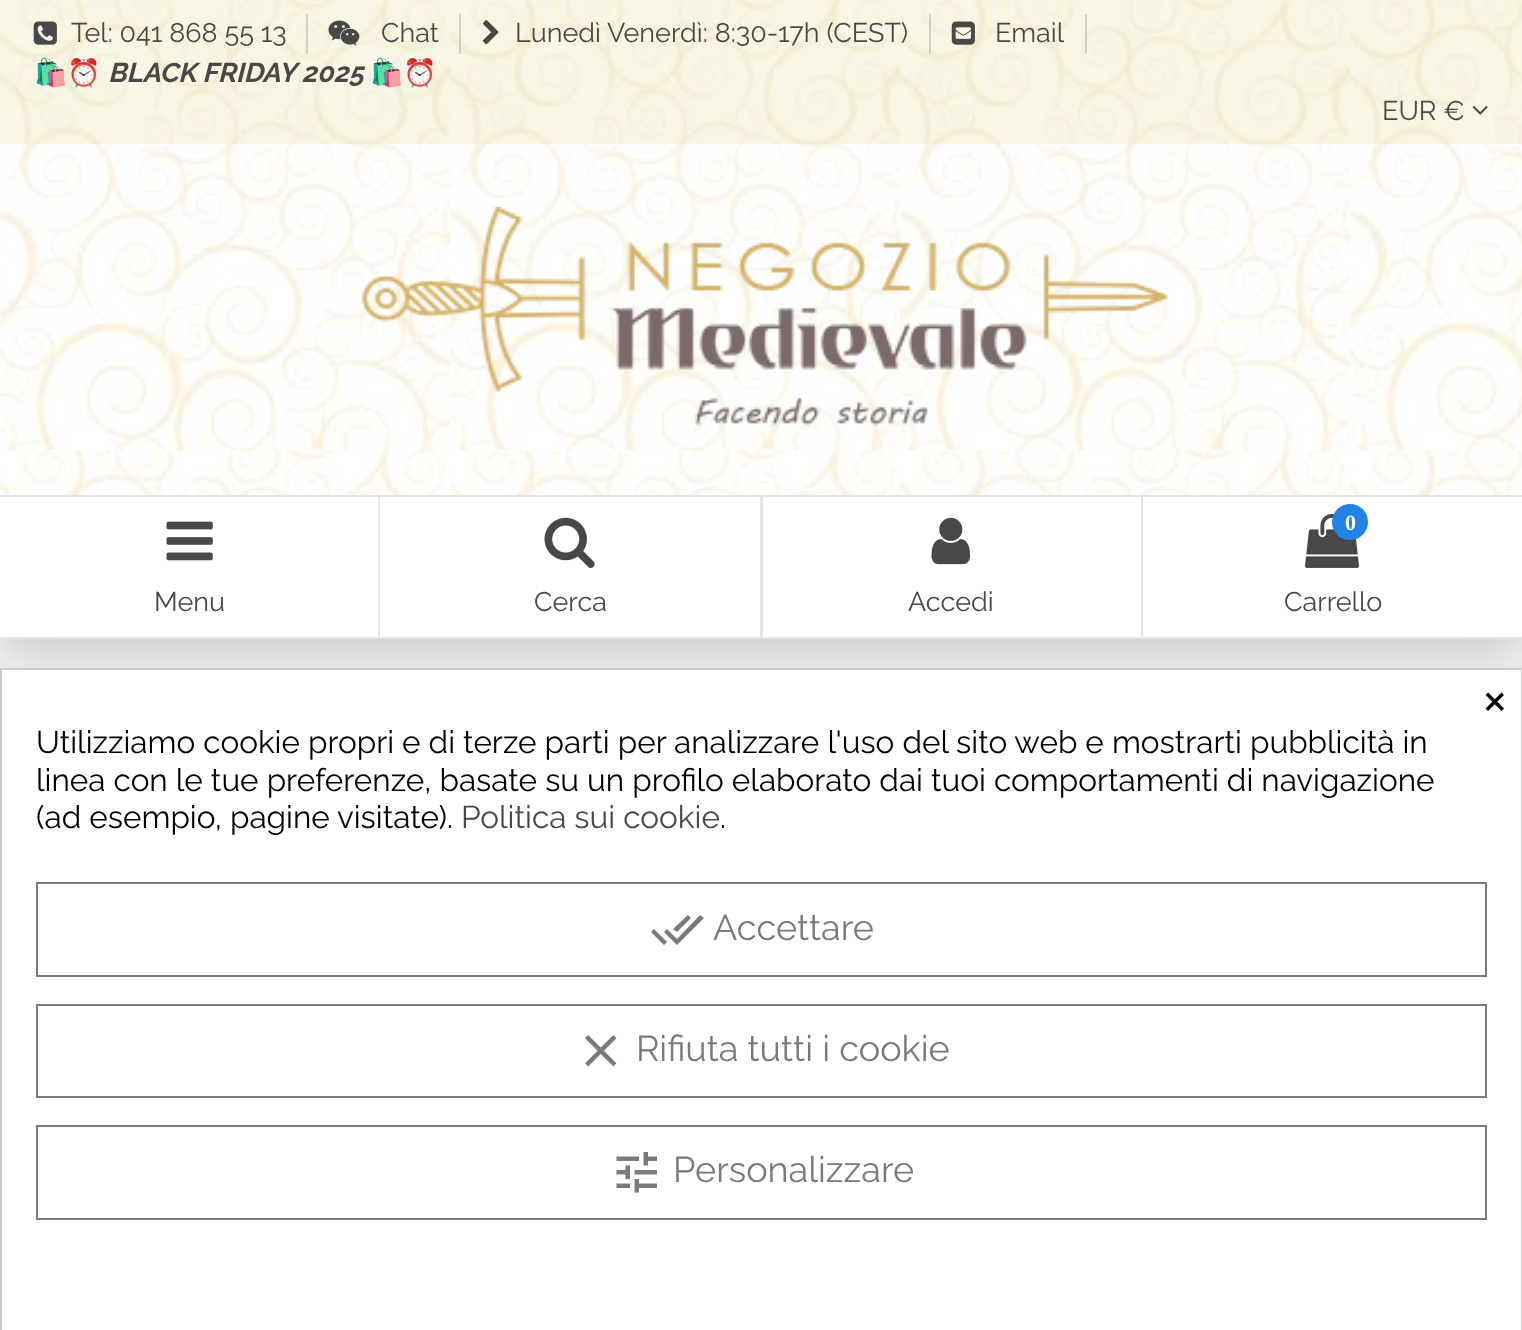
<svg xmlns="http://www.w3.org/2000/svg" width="1522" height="1330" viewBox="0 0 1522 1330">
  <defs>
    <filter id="blur1" x="-50%" y="-200%" width="200%" height="500%"><feGaussianBlur stdDeviation="28"/></filter>
  </defs>
  <rect width="100%" height="100%" fill="#f0f0f0"/>
  <rect x="0" y="11" width="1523" height="639" fill="#000000" fill-opacity="0.18" filter="url(#blur1)"/>
  <image x="0" y="0" width="1522" height="495" href="img1.png"/>
  <rect x="0" y="0" width="1522" height="144" fill="#e9dfa2" fill-opacity="0.27"/>
  <image x="33" y="21" width="24" height="24" href="img2.png"/>
  <text x="71" y="42" font-family="Raleway" font-size="27" fill="#484848">Tel: 041 868 55 13</text>
  <rect x="306" y="14" width="2" height="40" fill="#484848" fill-opacity="0.2"/>
  <image x="328" y="20" width="32" height="26" href="img3.png"/>
  <text x="381" y="42" font-family="Raleway" font-size="27" fill="#484848">Chat</text>
  <rect x="459" y="14" width="2" height="40" fill="#484848" fill-opacity="0.2"/>
  <image x="482" y="20" width="17" height="25" href="img4.png"/>
  <text x="515" y="42" font-family="Raleway" font-size="27" fill="#484848">Lunedì Venerdì: 8:30-17h (CEST)</text>
  <rect x="929" y="14" width="2" height="40" fill="#484848" fill-opacity="0.2"/>
  <image x="951" y="21" width="24" height="24" href="img5.png"/>
  <text x="995" y="42" font-family="Raleway" font-size="27" fill="#484848">Email</text>
  <rect x="1085" y="14" width="2" height="40" fill="#484848" fill-opacity="0.2"/>
  <text x="34" y="82" font-family="Noto Color Emoji" font-size="27" fill="#484848">🛍️⏰</text>
  <text x="108" y="82" font-family="Raleway" font-size="27" font-weight="bold" font-style="italic" fill="#484848">BLACK FRIDAY 2025</text>
  <text x="370" y="82" font-family="Noto Color Emoji" font-size="27" fill="#484848">🛍️⏰</text>
  <text x="1382" y="120" font-family="Raleway" font-size="27" fill="#484848">EUR €</text>
  <image x="1472" y="106" width="16" height="9" href="img6.png"/>
  <image x="361" y="207" width="808" height="219" href="img7.png"/>
  <rect x="0" y="495" width="1522" height="144" fill="#ffffff"/>
  <path d="M0 495H380L378 497H0Z" fill="#e5e5e5"/>
  <path d="M380 495V639L378 637V497Z" fill="#151515" fill-opacity="0.11"/>
  <path d="M380 639H0V637H378Z" fill="#151515" fill-opacity="0.11"/>
  <image x="166" y="521" width="47" height="40" href="img8.png"/>
  <text x="154" y="611" font-family="Raleway" font-size="27" fill="#484848">Menu</text>
  <path d="M380 495H763L760 497H380Z" fill="#e5e5e5"/>
  <path d="M763 495V639L760 637V497Z" fill="#151515" fill-opacity="0.11"/>
  <path d="M763 639H380V637H760Z" fill="#151515" fill-opacity="0.11"/>
  <image x="544" y="517" width="51" height="51" href="img9.png"/>
  <text x="534" y="611" font-family="Raleway" font-size="27" fill="#484848">Cerca</text>
  <path d="M763 495H1143L1141 497H763Z" fill="#e5e5e5"/>
  <path d="M1143 495V639L1141 637V497Z" fill="#151515" fill-opacity="0.11"/>
  <path d="M1143 639H763V637H1141Z" fill="#151515" fill-opacity="0.11"/>
  <image x="931" y="517" width="40" height="48" href="img10.png"/>
  <text x="908" y="611" font-family="Raleway" font-size="27" fill="#484848">Accedi</text>
  <rect x="1143" y="495" width="379" height="2" fill="#e5e5e5"/>
  <rect x="1143" y="637" width="379" height="2" fill="#e5e5e5"/>
  <image x="1305" y="514" width="54" height="54" href="img11.png"/>
  <circle cx="1350" cy="522" r="18" fill="#2183e6"/>
  <text x="1345" y="530" font-family="Liberation Serif" font-size="22" font-weight="bold" fill="#ffffff">0</text>
  <text x="1284" y="611" font-family="Raleway" font-size="27" fill="#484848">Carrello</text>
  <rect x="1" y="669" width="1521" height="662" fill="#ffffff" stroke="#cccccc" stroke-width="2"/>
  <text x="1482" y="717" font-family="Raleway" font-size="56" fill="#000000">×</text>
  <text x="36" y="753" font-family="Raleway" font-size="31.5" fill="#000000">Utilizziamo cookie propri e di terze parti per analizzare l'uso del sito web e mostrarti pubblicità in</text>
  <text x="36" y="791" font-family="Raleway" font-size="31.5" fill="#000000">linea con le tue preferenze, basate su un profilo elaborato dai tuoi comportamenti di navigazione</text>
  <text x="36" y="828" font-family="Raleway" font-size="31.5" fill="#000000">(ad esempio, pagine visitate).</text>
  <text x="461" y="828" font-family="Raleway" font-size="31.5" fill="#484848">Politica sui cookie</text>
  <text x="720" y="828" font-family="Raleway" font-size="31.5" fill="#000000">.</text>
  <rect x="37" y="883" width="1449" height="93" fill="none" stroke="#7a7a7a" stroke-width="2"/>
  <path d="M651 932L654 929L667 942L664 945ZM700 915L704 918L677 945L664 932L667 929L677 939ZM691 918L677 932L673 929L688 915Z" fill="#7a7a7a"/>
  <text x="713" y="940" font-family="Raleway" font-size="36" fill="#7a7a7a">Accettare</text>
  <rect x="37" y="1005" width="1449" height="92" fill="none" stroke="#7a7a7a" stroke-width="2"/>
  <image x="585" y="1035" width="32" height="32" href="img12.png"/>
  <text x="636" y="1061" font-family="Raleway" font-size="36" fill="#7a7a7a">Rifiuta tutti i cookie</text>
  <rect x="37" y="1126" width="1449" height="93" fill="none" stroke="#7a7a7a" stroke-width="2"/>
  <image x="616" y="1152" width="41" height="41" href="img13.png"/>
  <text x="673" y="1182" font-family="Raleway" font-size="36" fill="#7a7a7a">Personalizzare</text>
</svg>
